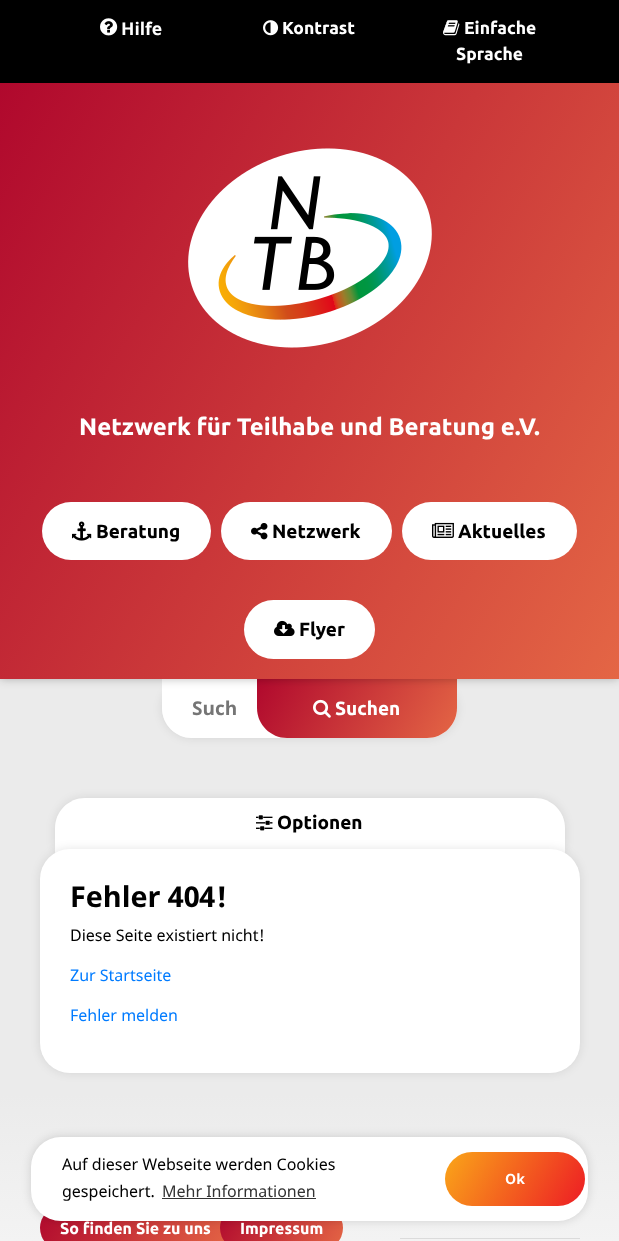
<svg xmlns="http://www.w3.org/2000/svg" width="619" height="1241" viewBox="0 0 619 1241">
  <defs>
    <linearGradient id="g1" gradientUnits="userSpaceOnUse" x1="310" y1="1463" x2="310" y2="0"><stop offset="0" stop-color="#000000"/><stop offset="0.1" stop-color="#000000"/><stop offset="0.1" stop-color="#ebebeb"/><stop offset="0.99" stop-color="#ebebeb"/><stop offset="1" stop-color="#ffffff"/></linearGradient>
    <filter id="blur1" x="-50%" y="-200%" width="200%" height="500%"><feGaussianBlur stdDeviation="5"/></filter>
    <linearGradient id="g2" gradientUnits="userSpaceOnUse" x1="269" y1="658" x2="445" y2="759"><stop offset="0" stop-color="#b0082d"/><stop offset="1" stop-color="#e46645"/></linearGradient>
    <linearGradient id="g3" gradientUnits="userSpaceOnUse" x1="-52" y1="172" x2="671" y2="590"><stop offset="0" stop-color="#b0082d"/><stop offset="1" stop-color="#e46645"/></linearGradient>
    <linearGradient id="g4" gradientUnits="userSpaceOnUse" x1="310" y1="1093" x2="310" y2="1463"><stop offset="0" stop-color="#ebebeb"/><stop offset="1" stop-color="#ffffff"/></linearGradient>
    <linearGradient id="g5" gradientUnits="userSpaceOnUse" x1="54" y1="1181" x2="216" y2="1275"><stop offset="0" stop-color="#b0082d"/><stop offset="1" stop-color="#e46645"/></linearGradient>
    <linearGradient id="g6" gradientUnits="userSpaceOnUse" x1="226" y1="1196" x2="337" y2="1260"><stop offset="0" stop-color="#b0082d"/><stop offset="1" stop-color="#e46645"/></linearGradient>
    <linearGradient id="g7" gradientUnits="userSpaceOnUse" x1="451" y1="1142" x2="579" y2="1216"><stop offset="0" stop-color="#faa619"/><stop offset="1" stop-color="#ed1c24"/></linearGradient>
  </defs>
  <rect width="100%" height="100%" fill="#ffffff"/>
  <rect x="0" y="679" width="619" height="414" fill="url(#g1)"/>
  <rect x="0" y="0" width="619" height="83" fill="#000000"/>
  <image x="100" y="18" width="18" height="18" href="img1.png"/>
  <text x="121" y="35" font-family="Noto Sans" font-size="17.5" font-weight="bold" fill="#ffffff">Hilfe</text>
  <image x="263" y="20" width="16" height="16" href="img2.png"/>
  <text x="282" y="34" font-family="Ubuntu" font-size="17.5" font-weight="bold" fill="#ffffff">Kontrast</text>
  <image x="443" y="20" width="17" height="16" href="img3.png"/>
  <text x="464" y="34" font-family="Ubuntu" font-size="17.5" font-weight="bold" fill="#ffffff">Einfache</text>
  <text x="456" y="60" font-family="Ubuntu" font-size="17.5" font-weight="bold" fill="#ffffff">Sprache</text>
  <rect x="162" y="679" width="295" height="59" rx="29.5" fill="#ffffff"/>
  <rect x="162" y="679" width="295" height="59" rx="30" fill="#000000" fill-opacity="0.1" filter="url(#blur1)"/>
  <path d="M162 679H457V708C457 724.5 443.5 738 427 738H192C175.5 738 162 724.5 162 708Z" fill="#ffffff"/>
  <path d="M257 679H457V708C457 724.5 443.5 738 427 738H287C270.5 738 257 724.5 257 708Z" fill="url(#g2)"/>
  <rect x="0" y="83" width="619" height="596" fill="#000000" fill-opacity="0.26" filter="url(#blur1)"/>
  <rect x="0" y="83" width="619" height="596" fill="url(#g3)"/>
  <image x="188" y="148" width="244" height="200" href="img4.png"/>
  <text x="79" y="435" font-family="Ubuntu" font-size="24" font-weight="bold" fill="#ffffff">Netzwerk für Teilhabe und Beratung e.V.</text>
  <rect x="42" y="502" width="169" height="58" rx="29" fill="#ffffff"/>
  <image x="72" y="521" width="20" height="20" href="img5.png"/>
  <text x="96" y="538" font-family="Ubuntu" font-size="19" font-weight="bold" fill="#000000">Beratung</text>
  <rect x="221" y="502" width="171" height="58" rx="29" fill="#ffffff"/>
  <image x="251" y="523" width="17" height="17" href="img6.png"/>
  <text x="272" y="538" font-family="Ubuntu" font-size="19" font-weight="bold" fill="#000000">Netzwerk</text>
  <rect x="402" y="502" width="175" height="58" rx="29" fill="#ffffff"/>
  <image x="432" y="522" width="22" height="16" href="img7.png"/>
  <text x="458" y="538" font-family="Ubuntu" font-size="19" font-weight="bold" fill="#000000">Aktuelles</text>
  <rect x="244" y="600" width="131" height="59" rx="29.5" fill="#ffffff"/>
  <image x="274" y="620" width="21" height="16" href="img8.png"/>
  <text x="299" y="636" font-family="Ubuntu" font-size="19" font-weight="bold" fill="#000000">Flyer</text>
  <text x="192" y="715" font-family="Noto Sans" font-size="19" font-weight="bold" fill="#757575">Such</text>
  <image x="313" y="699" width="18" height="19" href="img9.png"/>
  <text x="335" y="715" font-family="Ubuntu" font-size="19" font-weight="bold" fill="#ffffff">Suchen</text>
  <rect x="55" y="798" width="510" height="71" rx="30" fill="#000000" fill-opacity="0.1" filter="url(#blur1)"/>
  <path d="M85 798H535C551.5 798 565 811.5 565 828V869H55V828C55 811.5 68.5 798 85 798Z" fill="#ffffff"/>
  <image x="256" y="815" width="17" height="16" href="img10.png"/>
  <text x="277" y="829" font-family="Ubuntu" font-size="19" font-weight="bold" fill="#000000">Optionen</text>
  <rect x="40" y="849" width="540" height="224" rx="30" fill="#000000" fill-opacity="0.1" filter="url(#blur1)"/>
  <rect x="40" y="849" width="540" height="224" rx="30" fill="#ffffff"/>
  <text x="70" y="907" font-family="Noto Sans" font-size="28.75" font-weight="bold" fill="#000000">Fehler 404!</text>
  <text x="70" y="941" font-family="Noto Sans" font-size="16" fill="#000000">Diese Seite existiert nicht!</text>
  <text x="70" y="981" font-family="Noto Sans" font-size="16" fill="#007bff">Zur Startseite</text>
  <text x="70" y="1021" font-family="Noto Sans" font-size="16" fill="#007bff">Fehler melden</text>
  <rect x="0" y="1093" width="619" height="148" fill="url(#g4)"/>
  <rect x="40" y="1206" width="190" height="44" rx="22" fill="url(#g5)"/>
  <rect x="220" y="1206" width="123" height="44" rx="22" fill="url(#g6)"/>
  <rect x="31" y="1137" width="557" height="84" rx="30" fill="#000000" fill-opacity="0.15" filter="url(#blur1)"/>
  <rect x="31" y="1137" width="557" height="84" rx="30" fill="#ffffff"/>
  <text x="62" y="1170" font-family="Noto Sans" font-size="16" fill="#000000">Auf dieser Webseite werden Cookies</text>
  <text x="62" y="1197" font-family="Noto Sans" font-size="16" fill="#000000">gespeichert.</text>
  <text x="162" y="1197" font-family="Noto Sans" font-size="16" fill="#333333">Mehr Informationen</text>
  <rect x="162" y="1198" width="154" height="1" fill="#333333"/>
  <rect x="445" y="1152" width="140" height="54" rx="27" fill="url(#g7)"/>
  <text x="505" y="1184" font-family="Noto Sans" font-size="14" font-weight="bold" fill="#ffffff">Ok</text>
  <text x="60" y="1234" font-family="Ubuntu" font-size="16" font-weight="bold" fill="#ffffff">So finden Sie zu uns</text>
  <text x="240" y="1234" font-family="Ubuntu" font-size="16" font-weight="bold" fill="#ffffff">Impressum</text>
  <rect x="400" y="1238" width="180" height="1" fill="#dbdbdb"/>
</svg>
